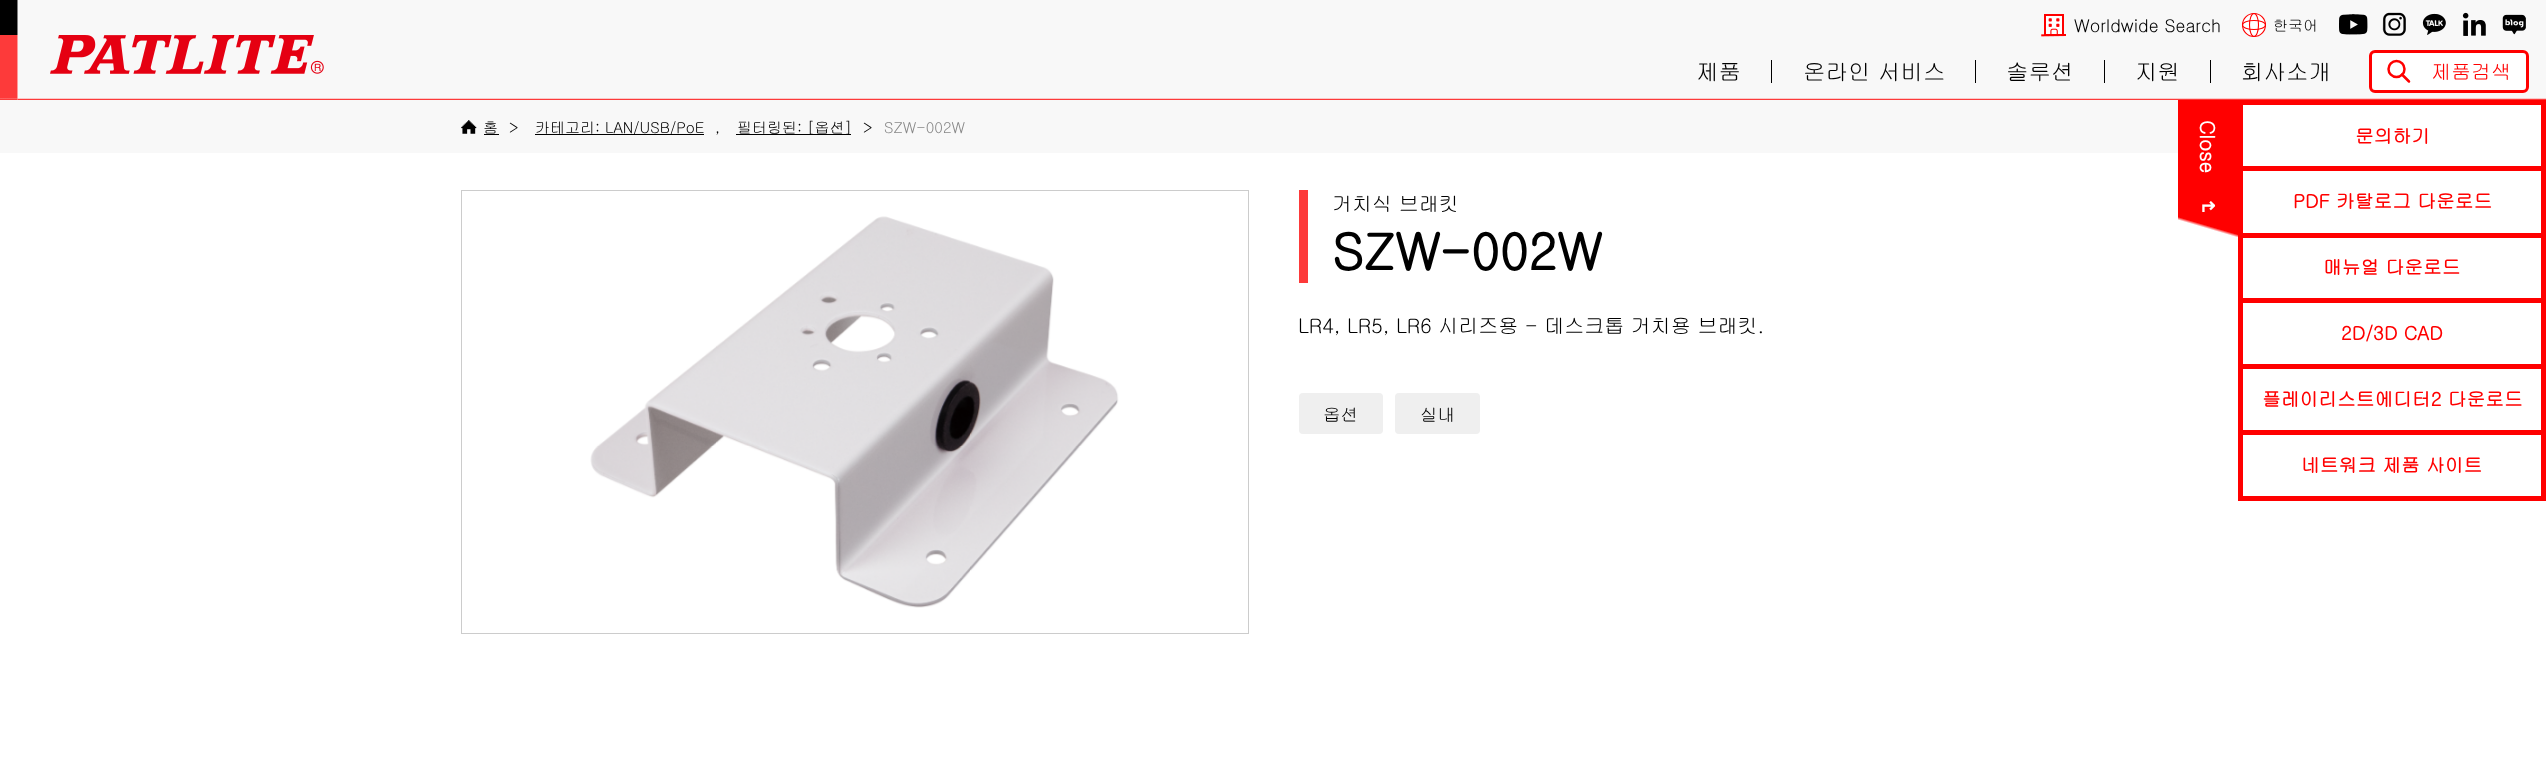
<svg xmlns="http://www.w3.org/2000/svg" width="2546" height="766" viewBox="0 0 2546 766">
  <defs>
    <linearGradient id="g1" gradientUnits="userSpaceOnUse" x1="2186" y1="243" x2="2229" y2="97"><stop offset="0.13" stop-color="#ff0000" stop-opacity="0"/><stop offset="0.15" stop-color="#ff0000"/></linearGradient>
  </defs>
  <rect width="100%" height="100%" fill="#ffffff"/>
  <rect x="18" y="0" width="2528" height="99" fill="#f8f8f8"/>
  <image x="0" y="0" width="2546" height="100" href="img1.png"/>
  <image x="50" y="35" width="274" height="39" href="img2.png"/>
  <image x="2041" y="14" width="25" height="23" href="img3.png"/>
  <text x="2074" y="32" font-family="Gulim" font-size="17.5" fill="#000000">Worldwide Search</text>
  <circle cx="2254" cy="25" r="11.5" fill="#ffffff" stroke="#ff0000" stroke-width="1.1"/>
  <ellipse cx="2254" cy="25" rx="4.5" ry="11.5" fill="none" stroke="#ff0000" stroke-width="1.1"/>
  <ellipse cx="2254" cy="25" rx="11.5" ry="4.5" fill="none" stroke="#ff0000" stroke-width="1.1"/>
  <text x="2273" y="31" font-family="Gulim" font-size="15" fill="#000000">한국어</text>
  <image x="2339" y="14" width="29" height="21" href="img4.png"/>
  <image x="2382" y="12" width="24" height="24" href="img5.png"/>
  <image x="2422" y="13" width="24" height="22" href="img6.png"/>
  <image x="2462" y="12" width="24" height="24" href="img7.png"/>
  <image x="2502" y="14" width="24" height="21" href="img8.png"/>
  <text x="1696" y="80" font-family="Gulim" font-size="22.5" fill="#000000">제품</text>
  <rect x="1771" y="60" width="1" height="23" fill="#000000"/>
  <text x="1803" y="80" font-family="Gulim" font-size="22.5" fill="#000000">온라인 서비스</text>
  <rect x="1975" y="60" width="1" height="23" fill="#000000"/>
  <text x="2006" y="80" font-family="Gulim" font-size="22.5" fill="#000000">솔루션</text>
  <rect x="2104" y="60" width="1" height="23" fill="#000000"/>
  <text x="2135" y="80" font-family="Gulim" font-size="22.5" fill="#000000">지원</text>
  <rect x="2210" y="60" width="1" height="23" fill="#000000"/>
  <text x="2241" y="80" font-family="Gulim" font-size="22.5" fill="#000000">회사소개</text>
  <rect x="2370.5" y="51.5" width="157" height="40" rx="4.5" fill="#ffffff" stroke="#ff0000" stroke-width="3"/>
  <circle cx="2396.5" cy="69" r="8" fill="none" stroke="#ff0000" stroke-width="2.5"/>
  <path d="M2409 81.5L2402 74.5" fill="none" stroke="#ff0000" stroke-width="2.5" stroke-linecap="round"/>
  <text x="2431" y="79" font-family="Gulim" font-size="20" fill="#ff0000">제품검색</text>
  <rect x="0" y="100" width="2178" height="53" fill="#f8f8f8"/>
  <image x="461" y="120" width="16" height="14" href="img9.png"/>
  <text x="483" y="133" font-family="Gulim" font-size="15" fill="#000000">홈</text>
  <rect x="484" y="134" width="15" height="1" fill="#000000"/>
  <text x="509" y="133" font-family="Gulim" font-size="15" fill="#000000">&gt;</text>
  <rect x="535" y="134" width="169" height="1" fill="#000000"/>
  <text x="535" y="133" font-family="Gulim" font-size="15" fill="#000000">카테고리: LAN/USB/PoE</text>
  <text x="715" y="133" font-family="Gulim" font-size="15" fill="#000000">,</text>
  <rect x="736" y="134" width="115" height="1" fill="#000000"/>
  <text x="737" y="133" font-family="Gulim" font-size="15" fill="#000000">필터링된: [옵션]</text>
  <text x="863" y="133" font-family="Gulim" font-size="15" fill="#000000">&gt;</text>
  <text x="884" y="133" font-family="Gulim" font-size="15" fill="#888888">SZW-002W</text>
  <rect x="461.5" y="190.5" width="787" height="443" fill="none" stroke="#cccccc"/>
  <image x="590" y="216" width="529" height="392" href="img10.png"/>
  <rect x="1299" y="190" width="9" height="93" fill="#fd3a3a"/>
  <text x="1332" y="211" font-family="Gulim" font-size="20" fill="#000000">거치식 브래킷</text>
  <text x="1332" y="270" font-family="Gulim" font-size="50" font-weight="bold" fill="#000000">SZW-002W</text>
  <text x="1298" y="333" font-family="Gulim" font-size="20" fill="#000000">LR4, LR5, LR6 시리즈용 - 데스크톱 거치용 브래킷.</text>
  <rect x="1299" y="393" width="84" height="41" rx="4" fill="#efefef"/>
  <text x="1323" y="421" font-family="Gulim" font-size="17.5" fill="#000000">옵션</text>
  <rect x="1395" y="393" width="85" height="41" rx="4" fill="#efefef"/>
  <text x="1420" y="421" font-family="Gulim" font-size="17.5" fill="#000000">실내</text>
  <rect x="2178" y="100" width="60" height="137" fill="url(#g1)"/>
  <text x="2200" y="120" transform="rotate(90 2200 120)" font-family="Gulim" font-size="20" font-weight="bold" fill="#ffffff">Close</text>
  <text x="2216" y="199" transform="rotate(180 2216 199)" font-family="DejaVu Sans" font-size="20" font-weight="bold" fill="#ffffff">↵</text>
  <rect x="2240.5" y="102.5" width="303" height="396" fill="none" stroke="#ff0000" stroke-width="5"/>
  <text x="2355" y="143" font-family="Gulim" font-size="18.75" font-weight="bold" fill="#ff0000">문의하기</text>
  <rect x="2243" y="166" width="298" height="5" fill="#ff0000"/>
  <text x="2293" y="208" font-family="Gulim" font-size="18.75" font-weight="bold" fill="#ff0000">PDF 카탈로그 다운로드</text>
  <rect x="2243" y="233" width="298" height="5" fill="#ff0000"/>
  <text x="2323" y="274" font-family="Gulim" font-size="18.75" font-weight="bold" fill="#ff0000">매뉴얼 다운로드</text>
  <rect x="2243" y="298" width="298" height="5" fill="#ff0000"/>
  <text x="2341" y="340" font-family="Gulim" font-size="18.75" font-weight="bold" fill="#ff0000">2D/3D CAD</text>
  <rect x="2243" y="364" width="298" height="5" fill="#ff0000"/>
  <text x="2262" y="406" font-family="Gulim" font-size="18.75" font-weight="bold" fill="#ff0000">플레이리스트에디터2 다운로드</text>
  <rect x="2243" y="430" width="298" height="5" fill="#ff0000"/>
  <text x="2301" y="472" font-family="Gulim" font-size="18.75" font-weight="bold" fill="#ff0000">네트워크 제품 사이트</text>
</svg>
